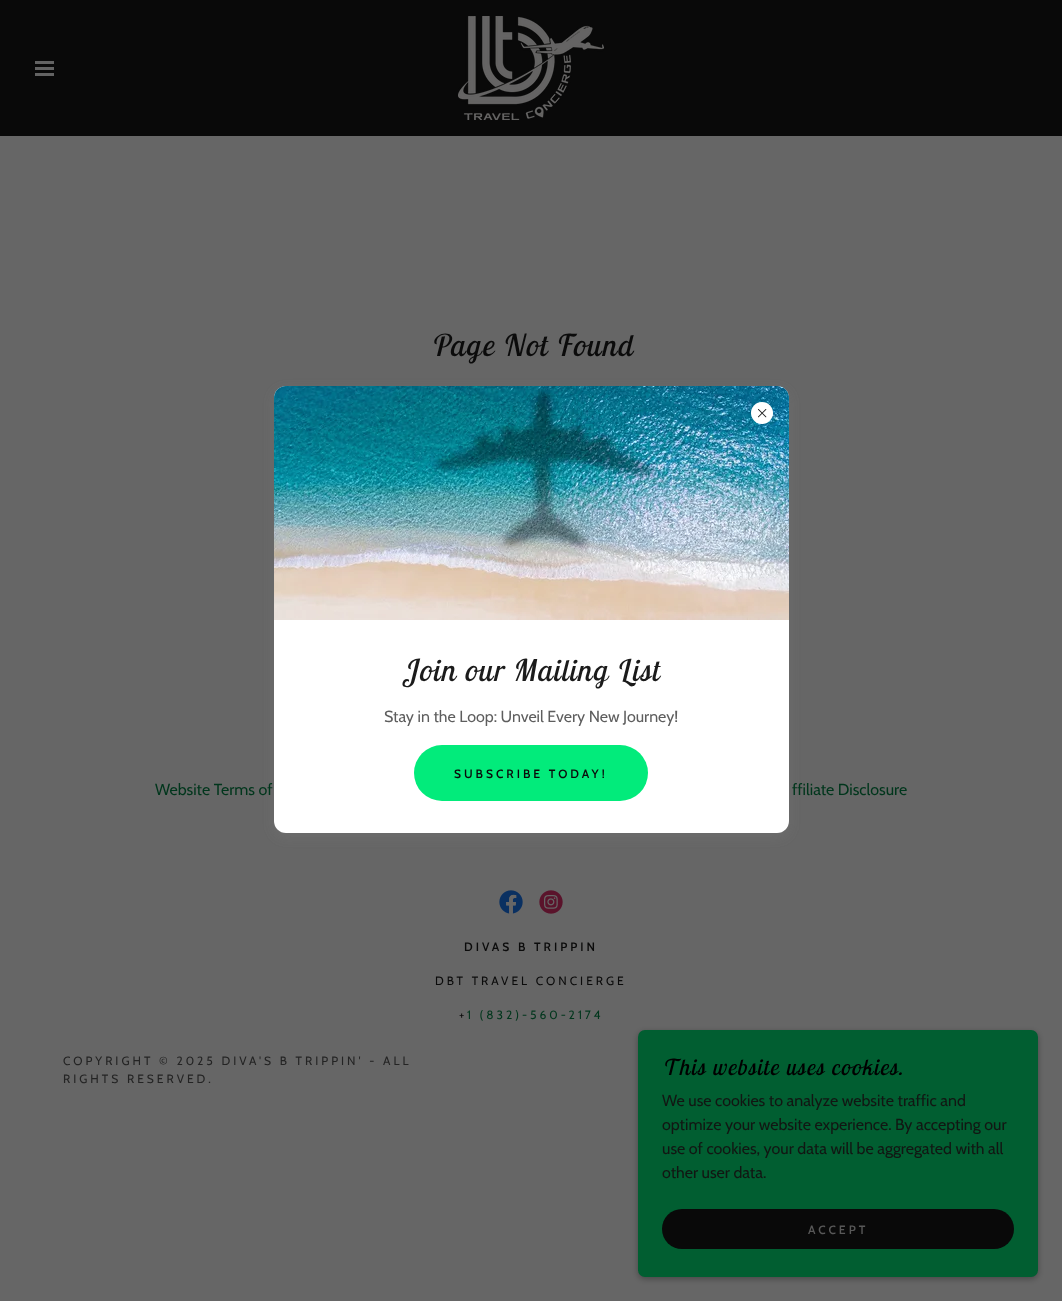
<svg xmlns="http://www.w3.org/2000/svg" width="1062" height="1301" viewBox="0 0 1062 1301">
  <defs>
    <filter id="blur1" x="-50%" y="-200%" width="200%" height="500%"><feGaussianBlur stdDeviation="6"/></filter>
    <filter id="blur2" x="-50%" y="-200%" width="200%" height="500%"><feGaussianBlur stdDeviation="3"/></filter>
  </defs>
  <rect width="100%" height="100%" fill="#666666"/>
  <rect x="0" y="0" width="1062" height="136" fill="#090909"/>
  <rect x="35" y="61" width="19" height="3" fill="#636363"/>
  <rect x="35" y="67" width="19" height="3" fill="#636363"/>
  <rect x="35" y="73" width="19" height="3" fill="#636363"/>
  <image x="458" y="16" width="146" height="104" href="img1.png"/>
  <text x="430" y="356" font-family="Lobster Two" font-size="30" font-style="italic" letter-spacing="1.5" fill="#0b0b0b">Page Not Found</text>
  <rect x="274" y="390" width="515" height="447" rx="12" fill="#757575" fill-opacity="0.4" filter="url(#blur1)"/>
  <rect x="274" y="386" width="515" height="447" rx="12" fill="#ffffff"/>
  <image x="274" y="386" width="515" height="234" href="img3.png"/>
  <circle cx="762" cy="413" r="11" fill="#ffffff"/>
  <image x="758" y="409" width="9" height="9" href="img2.png"/>
  <text x="403" y="681" font-family="Lobster Two" font-size="30" font-style="italic" letter-spacing="1.5" fill="#1b1b1b">Join our Mailing List</text>
  <text x="384" y="722" font-family="Cabin" font-size="16" fill="#5e5e5e">Stay in the Loop: Unveil Every New Journey!</text>
  <rect x="414" y="745" width="234" height="56" rx="28" fill="#02eb7b"/>
  <text x="454" y="778" font-family="Cabin" font-size="12" font-weight="600" letter-spacing="3" fill="#0b0b0b">SUBSCRIBE TODAY!</text>
  <text x="155" y="795" font-family="Cabin" font-size="16" fill="#00361c">Website Terms of</text>
  <text x="792" y="795" font-family="Cabin" font-size="16" fill="#00361c">ffiliate Disclosure</text>
  <image x="499" y="890" width="24" height="24" href="img4.png"/>
  <image x="539" y="890" width="24" height="24" href="img5.png"/>
  <text x="464" y="951" font-family="Cabin" font-size="12" font-weight="600" letter-spacing="3" fill="#0b0b0b">DIVAS B TRIPPIN</text>
  <text x="435" y="985" font-family="Cabin" font-size="12" letter-spacing="3" fill="#0b0b0b">DBT TRAVEL CONCIERGE</text>
  <text x="459" y="1019" font-family="Cabin" font-size="12" letter-spacing="3" fill="#0b0b0b">+</text>
  <text x="467" y="1019" font-family="Cabin" font-size="12" letter-spacing="3" fill="#00361c">1 (832)-560-2174</text>
  <text x="63" y="1065" font-family="Cabin" font-size="12" letter-spacing="3" fill="#242424">COPYRIGHT © 2025 DIVA'S B TRIPPIN' - ALL</text>
  <text x="63" y="1083" font-family="Cabin" font-size="12" letter-spacing="3" fill="#242424">RIGHTS RESERVED.</text>
  <rect x="638" y="1032" width="400" height="247" rx="7" fill="#000000" fill-opacity="0.3" filter="url(#blur2)"/>
  <rect x="638" y="1030" width="400" height="247" rx="7" fill="#015e31"/>
  <text x="662" y="1075" font-family="Lobster Two" font-size="22" font-style="italic" letter-spacing="1.5" fill="#000000">This website uses cookies.</text>
  <text x="662" y="1106" font-family="Cabin" font-size="16" fill="#121613">We use cookies to analyze website traffic and</text>
  <text x="662" y="1130" font-family="Cabin" font-size="16" fill="#121613">optimize your website experience. By accepting our</text>
  <text x="662" y="1154" font-family="Cabin" font-size="16" fill="#121613">use of cookies, your data will be aggregated with all</text>
  <text x="662" y="1178" font-family="Cabin" font-size="16" fill="#121613">other user data.</text>
  <rect x="662" y="1209" width="352" height="40" rx="20" fill="#090909"/>
  <text x="808" y="1234" font-family="Cabin" font-size="12" font-weight="600" letter-spacing="3" fill="#585858">ACCEPT</text>
</svg>
